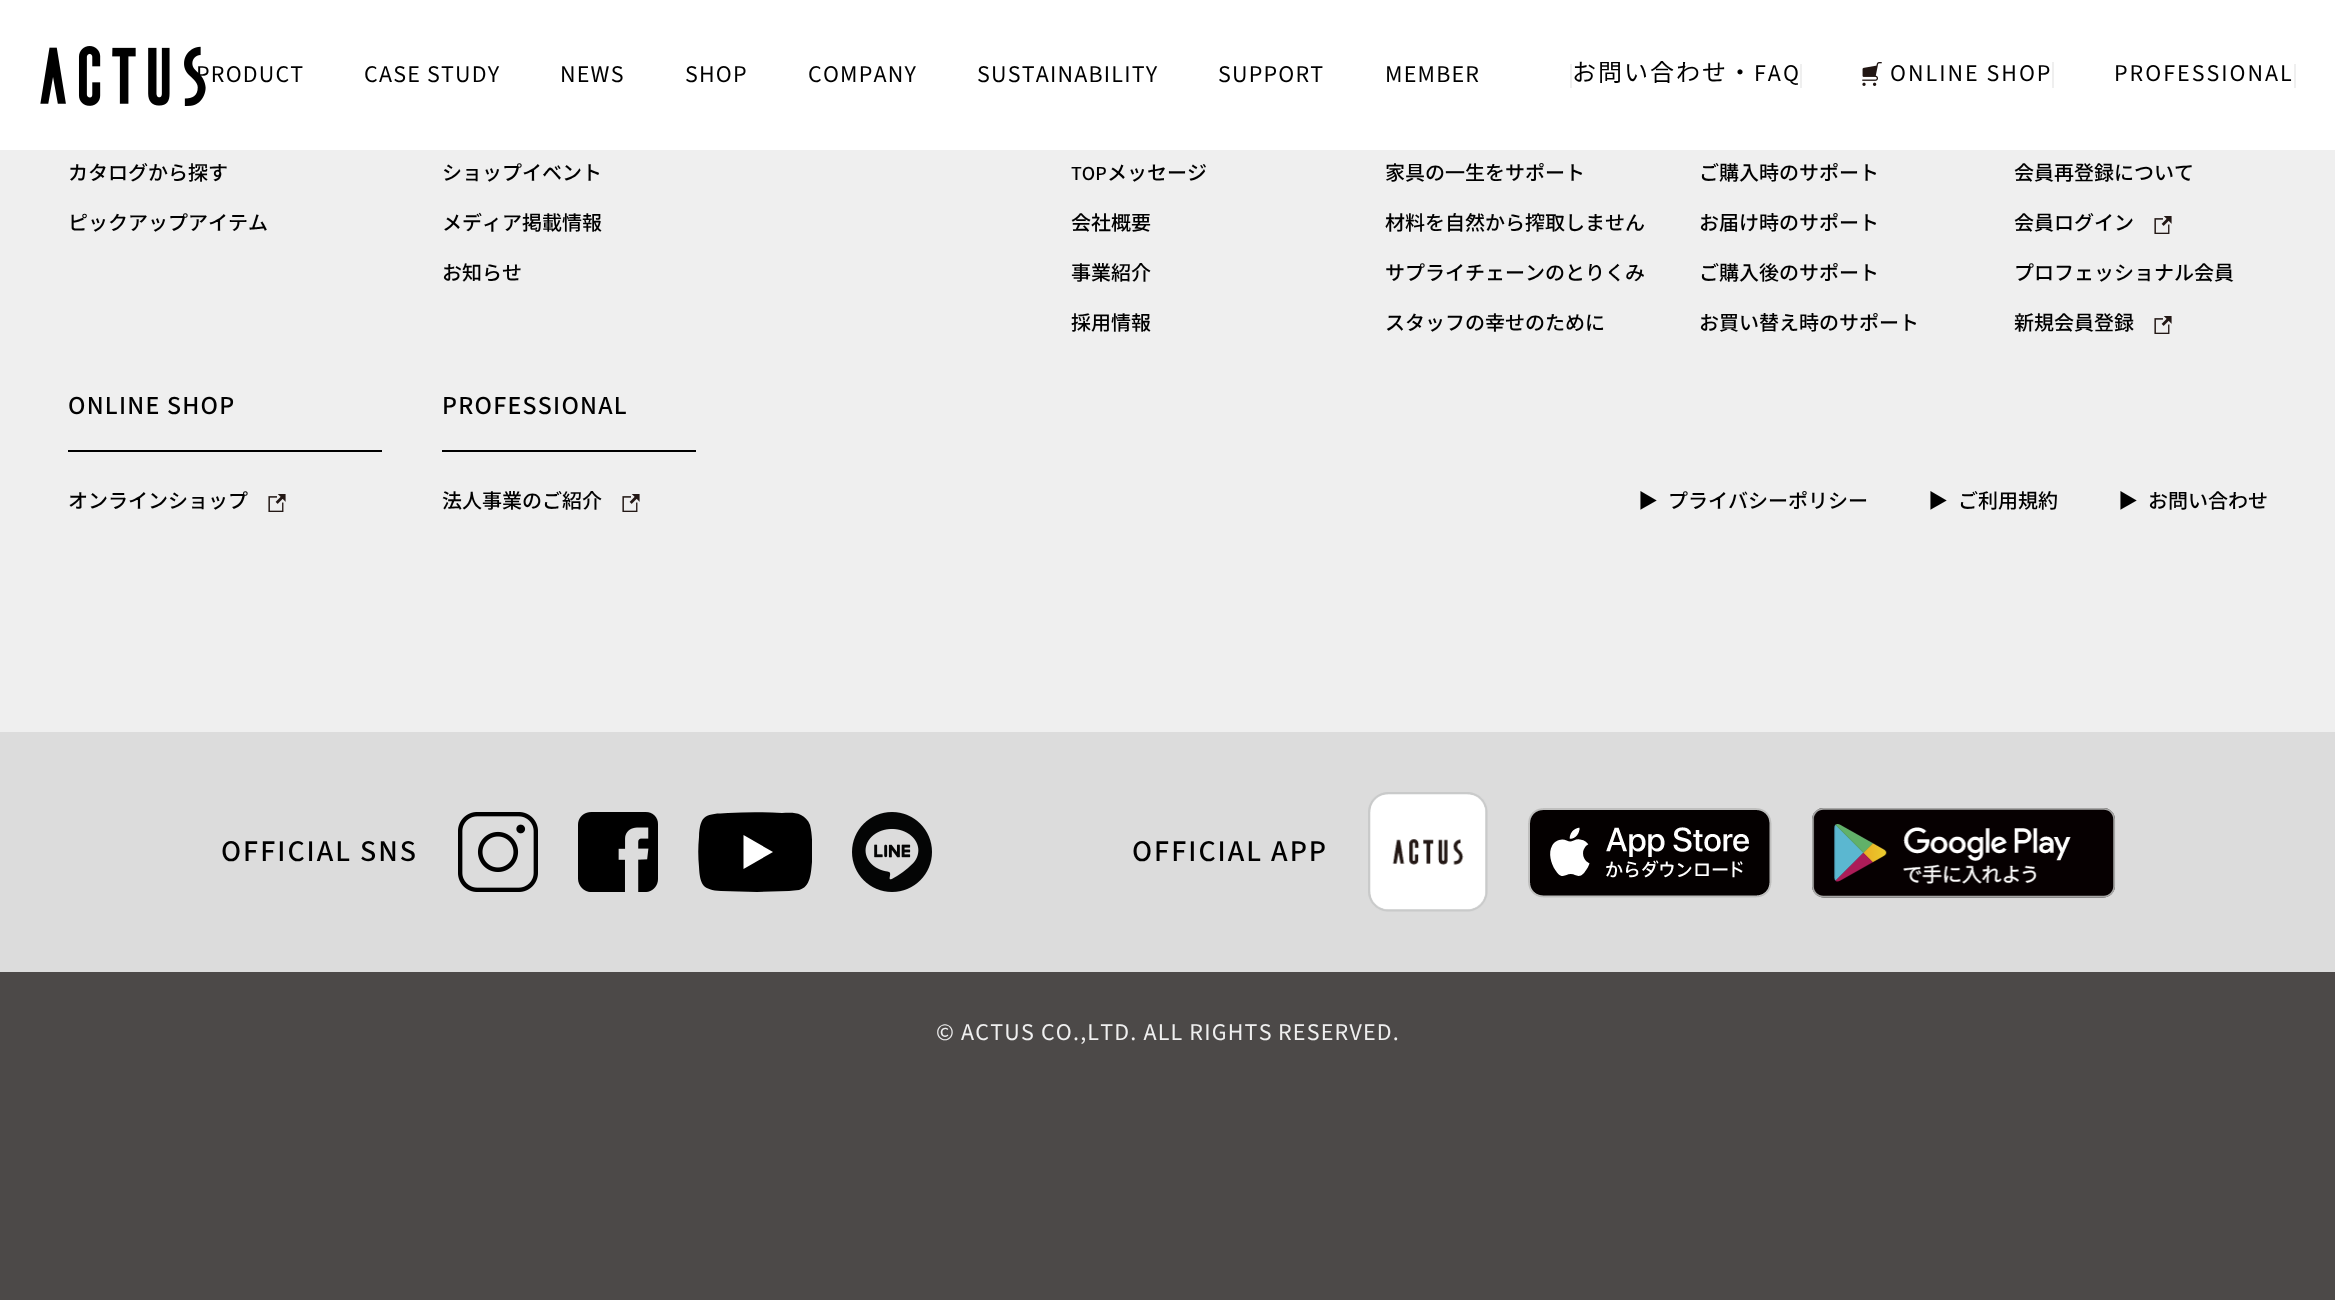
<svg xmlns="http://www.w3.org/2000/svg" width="2335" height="1300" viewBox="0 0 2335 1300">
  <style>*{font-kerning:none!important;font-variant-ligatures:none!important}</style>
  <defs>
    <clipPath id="clip1"><rect x="698" y="812" width="114" height="80"/></clipPath>
  </defs>
  <rect width="100%" height="100%" fill="#dcdcdc"/>
  <rect x="0" y="0" width="2335" height="150" fill="#ffffff"/>
  <image x="40" y="46" width="166" height="60" href="img1.png"/>
  <text x="196" y="82" font-family="'Source Sans 3'" font-size="24" letter-spacing="1.2" fill="#000000">PRODUCT</text>
  <text x="364" y="82" font-family="'Source Sans 3'" font-size="24" letter-spacing="1.2" fill="#000000">CASE STUDY</text>
  <text x="560" y="82" font-family="'Source Sans 3'" font-size="24" letter-spacing="1.2" fill="#000000">NEWS</text>
  <text x="685" y="82" font-family="'Source Sans 3'" font-size="24" letter-spacing="1.2" fill="#000000">SHOP</text>
  <text x="808" y="82" font-family="'Source Sans 3'" font-size="24" letter-spacing="1.2" fill="#000000">COMPANY</text>
  <text x="977" y="82" font-family="'Source Sans 3'" font-size="24" letter-spacing="1.2" fill="#000000">SUSTAINABILITY</text>
  <text x="1218" y="82" font-family="'Source Sans 3'" font-size="24" letter-spacing="1.2" fill="#000000">SUPPORT</text>
  <text x="1385" y="82" font-family="'Source Sans 3'" font-size="24" letter-spacing="1.2" fill="#000000">MEMBER</text>
  <rect x="1800" y="64" width="2" height="24" fill="#efefef"/>
  <rect x="1570" y="64" width="2" height="24" fill="#efefef"/>
  <text x="1572" y="81" font-family="Noto Sans JP" font-size="24" letter-spacing="2" fill="#000000">お問い合わせ・</text>
  <text x="1754" y="81" font-family="'Source Sans 3'" font-size="24" letter-spacing="2" fill="#000000">FAQ</text>
  <rect x="2052" y="62" width="2" height="26" fill="#efefef"/>
  <image x="1862" y="62" width="20" height="24" href="img2.png"/>
  <text x="1890" y="81" font-family="'Source Sans 3'" font-size="24" letter-spacing="2" fill="#000000">ONLINE SHOP</text>
  <rect x="2294" y="64" width="2" height="24" fill="#efefef"/>
  <text x="2114" y="81" font-family="'Source Sans 3'" font-size="24" letter-spacing="2" fill="#000000">PROFESSIONAL</text>
  <rect x="0" y="150" width="2335" height="582" fill="#efefef"/>
  <text x="68" y="180" font-family="Noto Sans JP" font-size="20" font-weight="500" fill="#000000">カタログから探す</text>
  <text x="68" y="230" font-family="Noto Sans JP" font-size="20" font-weight="500" fill="#000000">ピックアップアイテム</text>
  <text x="442" y="180" font-family="Noto Sans JP" font-size="20" font-weight="500" fill="#000000">ショップイベント</text>
  <text x="442" y="230" font-family="Noto Sans JP" font-size="20" font-weight="500" fill="#000000">メディア掲載情報</text>
  <text x="442" y="280" font-family="Noto Sans JP" font-size="20" font-weight="500" fill="#000000">お知らせ</text>
  <text x="1071" y="180" font-family="'Source Sans 3'" font-size="20" font-weight="500" fill="#000000">TOP</text>
  <text x="1107" y="180" font-family="Noto Sans JP" font-size="20" font-weight="500" fill="#000000">メッセージ</text>
  <text x="1071" y="230" font-family="Noto Sans JP" font-size="20" font-weight="500" fill="#000000">会社概要</text>
  <text x="1071" y="280" font-family="Noto Sans JP" font-size="20" font-weight="500" fill="#000000">事業紹介</text>
  <text x="1071" y="330" font-family="Noto Sans JP" font-size="20" font-weight="500" fill="#000000">採用情報</text>
  <text x="1385" y="180" font-family="Noto Sans JP" font-size="20" font-weight="500" fill="#000000">家具の一生をサポート</text>
  <text x="1385" y="230" font-family="Noto Sans JP" font-size="20" font-weight="500" fill="#000000">材料を自然から搾取しません</text>
  <text x="1385" y="280" font-family="Noto Sans JP" font-size="20" font-weight="500" fill="#000000">サプライチェーンのとりくみ</text>
  <text x="1385" y="330" font-family="Noto Sans JP" font-size="20" font-weight="500" fill="#000000">スタッフの幸せのために</text>
  <text x="1699" y="180" font-family="Noto Sans JP" font-size="20" font-weight="500" fill="#000000">ご購入時のサポート</text>
  <text x="1699" y="230" font-family="Noto Sans JP" font-size="20" font-weight="500" fill="#000000">お届け時のサポート</text>
  <text x="1699" y="280" font-family="Noto Sans JP" font-size="20" font-weight="500" fill="#000000">ご購入後のサポート</text>
  <text x="1699" y="330" font-family="Noto Sans JP" font-size="20" font-weight="500" fill="#000000">お買い替え時のサポート</text>
  <text x="2014" y="180" font-family="Noto Sans JP" font-size="20" font-weight="500" fill="#000000">会員再登録について</text>
  <text x="2014" y="230" font-family="Noto Sans JP" font-size="20" font-weight="500" fill="#000000">会員ログイン</text>
  <image x="2154" y="216" width="18" height="18" href="img3.png"/>
  <text x="2014" y="280" font-family="Noto Sans JP" font-size="20" font-weight="500" fill="#000000">プロフェッショナル会員</text>
  <text x="2014" y="330" font-family="Noto Sans JP" font-size="20" font-weight="500" fill="#000000">新規会員登録</text>
  <image x="2154" y="316" width="18" height="18" href="img3.png"/>
  <rect x="68" y="450" width="314" height="2" fill="#000000"/>
  <text x="68" y="414" font-family="'Source Sans 3'" font-size="26" font-weight="500" letter-spacing="1.25" fill="#000000">ONLINE SHOP</text>
  <text x="68" y="508" font-family="Noto Sans JP" font-size="20" font-weight="500" fill="#000000">オンラインショップ</text>
  <image x="268" y="494" width="18" height="18" href="img3.png"/>
  <rect x="442" y="450" width="254" height="2" fill="#000000"/>
  <text x="442" y="414" font-family="'Source Sans 3'" font-size="26" font-weight="500" letter-spacing="1.25" fill="#000000">PROFESSIONAL</text>
  <text x="442" y="508" font-family="Noto Sans JP" font-size="20" font-weight="500" fill="#000000">法人事業のご紹介</text>
  <image x="622" y="494" width="18" height="18" href="img3.png"/>
  <text x="1638" y="508" font-family="Noto Sans JP" font-size="20" font-weight="500" fill="#000000">▶︎</text>
  <text x="1668" y="508" font-family="Noto Sans JP" font-size="20" font-weight="500" fill="#000000">プライバシーポリシー</text>
  <text x="1928" y="508" font-family="Noto Sans JP" font-size="20" font-weight="500" fill="#000000">▶︎</text>
  <text x="1958" y="508" font-family="Noto Sans JP" font-size="20" font-weight="500" fill="#000000">ご利用規約</text>
  <text x="2118" y="508" font-family="Noto Sans JP" font-size="20" font-weight="500" fill="#000000">▶︎</text>
  <text x="2148" y="508" font-family="Noto Sans JP" font-size="20" font-weight="500" fill="#000000">お問い合わせ</text>
  <text x="221" y="861" font-family="'Source Sans 3'" font-size="30" font-weight="500" letter-spacing="2" fill="#000000">OFFICIAL SNS</text>
  <image x="458" y="812" width="80" height="80" href="img4.png"/>
  <image x="578" y="812" width="80" height="80" href="img5.png"/>
  <g clip-path="url(#clip1)">
    <path d="M810 825C808 820 805 817 801 815C795 812 788 813 782 813C764 812 746 812 728 813C706 814 700 814 699 837C698 847 698 857 699 867C700 885 703 890 721 891L757 892L789 891L799 890C811 887 811 872 812 862C812 850 813 837 810 825Z" fill="#000000"/>
  </g>
  <path d="M743.5 869V835L773 852Z" fill="#ffffff"/>
  <image x="852" y="812" width="80" height="80" href="img6.png"/>
  <text x="1132" y="861" font-family="'Source Sans 3'" font-size="30" font-weight="500" letter-spacing="2" fill="#000000">OFFICIAL APP</text>
  <image x="1368" y="792" width="120" height="120" href="img7.png"/>
  <image x="1528" y="808" width="244" height="90" href="img8.png"/>
  <image x="1812" y="808" width="304" height="90" href="img9.png"/>
  <rect x="0" y="972" width="2335" height="328" fill="#4c4948"/>
  <text x="936" y="1040" font-family="'Source Sans 3'" font-size="24" letter-spacing="1.2" fill="#efefef">© ACTUS CO.,LTD. ALL RIGHTS</text>
  <text x="1278" y="1040" font-family="'Source Sans 3'" font-size="24" letter-spacing="1.2" fill="#efefef">RESERVED.</text>
</svg>
